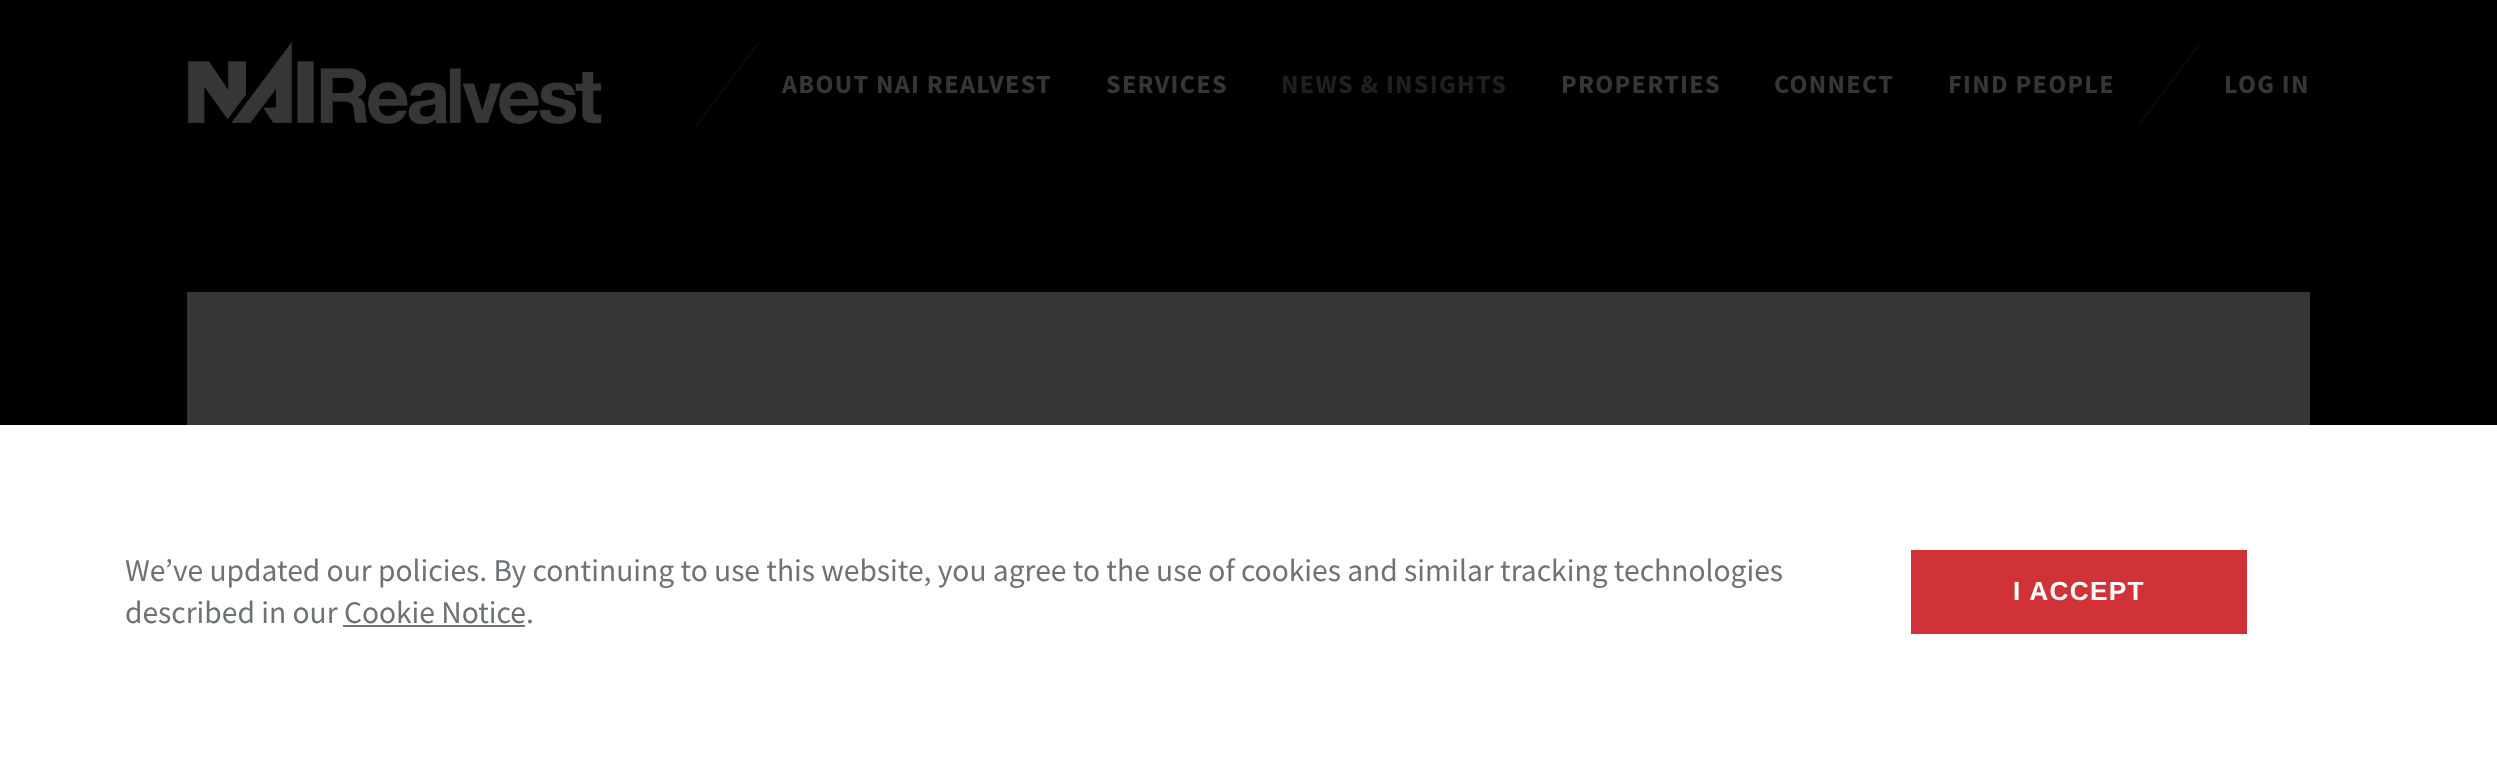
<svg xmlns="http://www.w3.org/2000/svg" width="2497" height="771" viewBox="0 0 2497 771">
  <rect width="100%" height="100%" fill="#000000"/>
  <image x="188" y="42" width="414" height="82" href="img1.png"/>
  <path d="M758 42H760L697 126H695Z" fill="#0b0b0b"/>
  <text x="782" y="93" font-family="Source Sans Pro" font-size="26.25" font-weight="bold" letter-spacing="1.3" fill="#363636">ABOUT NAI REALVEST</text>
  <text x="1106" y="93" font-family="Source Sans Pro" font-size="26.25" font-weight="bold" letter-spacing="1.3" fill="#363636">SERVICES</text>
  <text x="1281" y="93" font-family="Source Sans Pro" font-size="26.25" font-weight="bold" letter-spacing="1.3" fill="#202020">NEWS &amp; INSIGHTS</text>
  <text x="1561" y="93" font-family="Source Sans Pro" font-size="26.25" font-weight="bold" letter-spacing="1.3" fill="#363636">PROPERTIES</text>
  <text x="1774" y="93" font-family="Source Sans Pro" font-size="26.25" font-weight="bold" letter-spacing="1.3" fill="#363636">CONNECT</text>
  <text x="1948" y="93" font-family="Source Sans Pro" font-size="26.25" font-weight="bold" letter-spacing="1.3" fill="#363636">FIND PEOPLE</text>
  <path d="M2200 42H2202L2139 126H2137Z" fill="#0b0b0b"/>
  <text x="2224" y="93" font-family="Source Sans Pro" font-size="26.25" font-weight="bold" letter-spacing="1.3" fill="#363636">LOG IN</text>
  <rect x="187" y="292" width="2123" height="133" fill="#363636"/>
  <rect x="0" y="425" width="2497" height="346" fill="#ffffff"/>
  <text x="125" y="581" font-family="Source Sans Pro" font-size="31.5" fill="#6d7276">We’ve updated our policies. By continuing to use this website, you agree to the use of cookies and similar tracking technologies</text>
  <text x="125" y="623" font-family="Source Sans Pro" font-size="31.5" fill="#6d7276">described in our Cookie Notice.</text>
  <rect x="343" y="625" width="182" height="2" fill="#6d7276"/>
  <rect x="1911" y="550" width="336" height="84" fill="#d03238"/>
  <text x="2013" y="600" font-family="Liberation Sans" font-size="26.25" font-weight="bold" letter-spacing="1.3" fill="#ffffff">I ACCEPT</text>
</svg>
